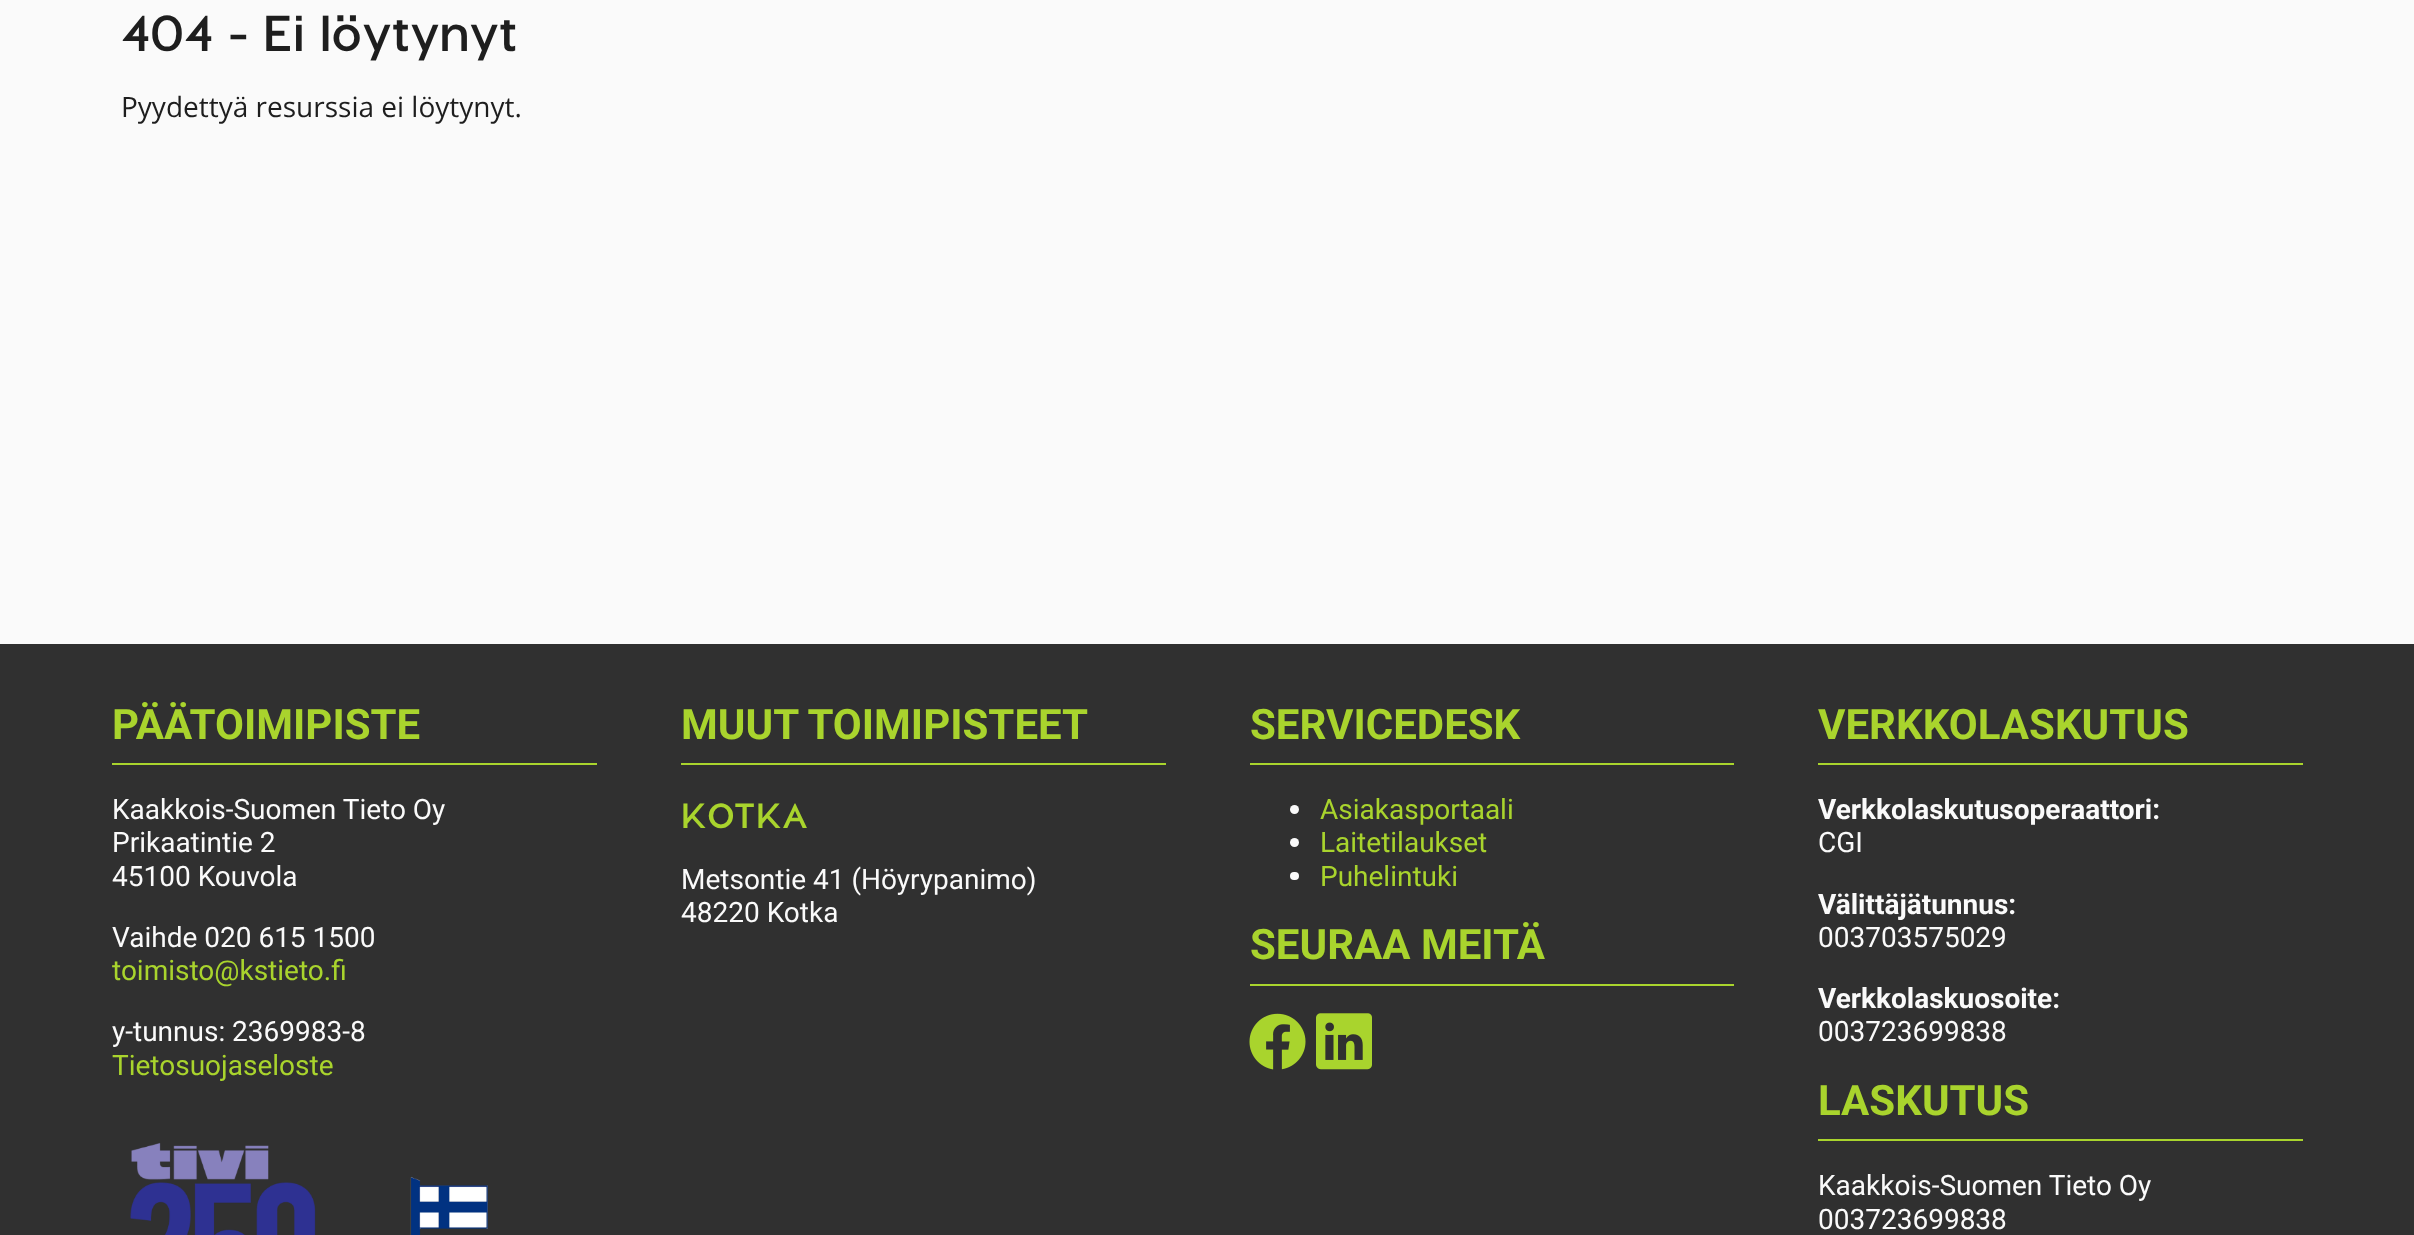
<svg xmlns="http://www.w3.org/2000/svg" width="2414" height="1235" viewBox="0 0 2414 1235">
  <rect width="100%" height="100%" fill="#fafafa"/>
  <text x="121" y="51" font-family="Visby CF" font-size="50.5" font-weight="bold" fill="#1e1e1e">404 - Ei löytynyt</text>
  <text x="121" y="117" font-family="Open Sans" font-size="28" fill="#1e1e1e">Pyydettyä resurssia ei löytynyt.</text>
  <rect x="0" y="644" width="2414" height="591" fill="#303030"/>
  <rect x="112" y="763" width="485" height="2" fill="#a9d42d"/>
  <text x="112" y="739" font-family="Roboto" font-size="42" font-weight="bold" fill="#a9d42d">PÄÄTOIMIPISTE</text>
  <text x="112" y="819" font-family="Roboto" font-size="28" fill="#fafafa">Kaakkois-Suomen Tieto Oy</text>
  <text x="112" y="852" font-family="Roboto" font-size="28" fill="#fafafa">Prikaatintie 2</text>
  <text x="112" y="886" font-family="Roboto" font-size="28" fill="#fafafa">45100 Kouvola</text>
  <text x="112" y="947" font-family="Roboto" font-size="28" fill="#fafafa">Vaihde 020 615 1500</text>
  <text x="112" y="980" font-family="Roboto" font-size="28" fill="#a9d42d">toimisto@kstieto.fi</text>
  <text x="112" y="1041" font-family="Roboto" font-size="28" fill="#fafafa">y-tunnus: 2369983-8</text>
  <text x="112" y="1075" font-family="Roboto" font-size="28" fill="#a9d42d">Tietosuojaseloste</text>
  <image x="130" y="1142" width="358" height="93" href="img1.png"/>
  <rect x="681" y="763" width="485" height="2" fill="#a9d42d"/>
  <text x="681" y="739" font-family="Roboto" font-size="42" font-weight="bold" fill="#a9d42d">MUUT TOIMIPISTEET</text>
  <text x="681" y="828" font-family="Visby CF" font-size="35" font-weight="bold" fill="#a9d42d">KOTKA</text>
  <text x="681" y="889" font-family="Roboto" font-size="28" fill="#fafafa">Metsontie 41 (Höyrypanimo)</text>
  <text x="681" y="922" font-family="Roboto" font-size="28" fill="#fafafa">48220 Kotka</text>
  <rect x="1250" y="763" width="484" height="2" fill="#a9d42d"/>
  <text x="1250" y="739" font-family="Roboto" font-size="42" font-weight="bold" fill="#a9d42d">SERVICEDESK</text>
  <circle cx="1294.5" cy="809.5" r="4.5" fill="#fafafa"/>
  <text x="1320" y="819" font-family="Roboto" font-size="28" fill="#a9d42d">Asiakasportaali</text>
  <circle cx="1294.5" cy="842.5" r="4.5" fill="#fafafa"/>
  <text x="1320" y="852" font-family="Roboto" font-size="28" fill="#a9d42d">Laitetilaukset</text>
  <rect x="1290" y="872" width="9" height="8" rx="4" fill="#fafafa"/>
  <text x="1320" y="886" font-family="Roboto" font-size="28" fill="#a9d42d">Puhelintuki</text>
  <rect x="1250" y="984" width="484" height="2" fill="#a9d42d"/>
  <text x="1250" y="959" font-family="Roboto" font-size="42" font-weight="bold" fill="#a9d42d">SEURAA MEITÄ</text>
  <image x="1249" y="1013" width="57" height="57" href="img2.png"/>
  <image x="1316" y="1013" width="56" height="57" href="img3.png"/>
  <rect x="1818" y="763" width="485" height="2" fill="#a9d42d"/>
  <text x="1818" y="739" font-family="Roboto" font-size="42" font-weight="bold" fill="#a9d42d">VERKKOLASKUTUS</text>
  <text x="1818" y="819" font-family="Roboto" font-size="28" font-weight="bold" fill="#fafafa">Verkkolaskutusoperaattori:</text>
  <text x="1818" y="852" font-family="Roboto" font-size="28" fill="#fafafa">CGI</text>
  <text x="1818" y="914" font-family="Roboto" font-size="28" font-weight="bold" fill="#fafafa">Välittäjätunnus:</text>
  <text x="1818" y="947" font-family="Roboto" font-size="28" fill="#fafafa">003703575029</text>
  <text x="1818" y="1008" font-family="Roboto" font-size="28" font-weight="bold" fill="#fafafa">Verkkolaskuosoite:</text>
  <text x="1818" y="1041" font-family="Roboto" font-size="28" fill="#fafafa">003723699838</text>
  <rect x="1818" y="1139" width="485" height="2" fill="#a9d42d"/>
  <text x="1818" y="1115" font-family="Roboto" font-size="42" font-weight="bold" fill="#a9d42d">LASKUTUS</text>
  <text x="1818" y="1195" font-family="Roboto" font-size="28" fill="#fafafa">Kaakkois-Suomen Tieto Oy</text>
  <text x="1818" y="1229" font-family="Roboto" font-size="28" fill="#fafafa">003723699838</text>
</svg>
